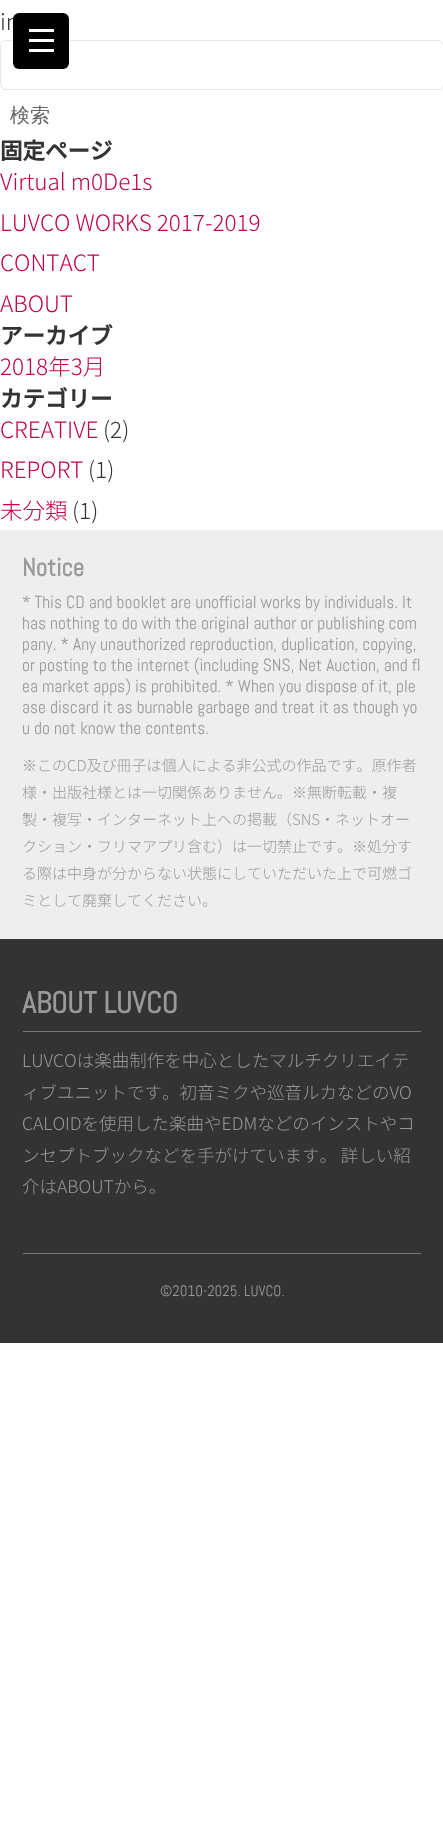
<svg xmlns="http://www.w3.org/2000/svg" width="443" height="1831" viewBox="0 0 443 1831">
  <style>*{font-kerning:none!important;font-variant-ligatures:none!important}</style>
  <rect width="100%" height="100%" fill="#ffffff"/>
  <text x="0" y="30" font-family="Noto Sans JP" font-size="22.5" font-weight="300" fill="#333333">in</text>
  <rect x="0.5" y="40.5" width="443" height="49" rx="5.5" fill="none" stroke="#e8e8e8"/>
  <rect x="13" y="13" width="56" height="56" rx="6" fill="#000000"/>
  <rect x="29" y="29" width="25" height="3" fill="#ffffff"/>
  <rect x="29" y="39" width="25" height="3" fill="#ffffff"/>
  <rect x="29" y="49" width="25" height="3" fill="#ffffff"/>
  <text x="10" y="122" font-family="WenQuanYi Zen Hei" font-size="20" font-weight="500" fill="#666666">検索</text>
  <text x="0" y="159" font-family="Noto Sans JP" font-size="22.5" font-weight="bold" fill="#333333">固定ページ</text>
  <text x="0" y="190" font-family="Noto Sans JP" font-size="22.5" font-weight="300" fill="#c40049">Virtual m0De1s</text>
  <text x="0" y="231" font-family="Noto Sans JP" font-size="22.5" font-weight="300" fill="#c40049">LUVCO WORKS 2017-2019</text>
  <text x="0" y="271" font-family="Noto Sans JP" font-size="22.5" font-weight="300" fill="#c40049">CONTACT</text>
  <text x="0" y="312" font-family="Noto Sans JP" font-size="22.5" font-weight="300" fill="#c40049">ABOUT</text>
  <text x="0" y="344" font-family="Noto Sans JP" font-size="22.5" font-weight="bold" fill="#333333">アーカイブ</text>
  <text x="0" y="375" font-family="Noto Sans JP" font-size="22.5" font-weight="300" fill="#c40049">2018年3月</text>
  <text x="0" y="407" font-family="Noto Sans JP" font-size="22.5" font-weight="bold" fill="#333333">カテゴリー</text>
  <text x="0" y="438" font-family="Noto Sans JP" font-size="22.5" font-weight="300" fill="#c40049">CREATIVE</text>
  <text x="103" y="438" font-family="Noto Sans JP" font-size="22.5" font-weight="300" fill="#333333">(2)</text>
  <text x="0" y="478" font-family="Noto Sans JP" font-size="22.5" font-weight="300" fill="#c40049">REPORT</text>
  <text x="88" y="478" font-family="Noto Sans JP" font-size="22.5" font-weight="300" fill="#333333">(1)</text>
  <text x="0" y="519" font-family="Noto Sans JP" font-size="22.5" font-weight="300" fill="#c40049">未分類</text>
  <text x="72" y="519" font-family="Noto Sans JP" font-size="22.5" font-weight="300" fill="#333333">(1)</text>
  <rect x="0" y="530" width="443" height="409" fill="#eeeeee"/>
  <text x="22" y="576" font-family="Abel" font-size="25" font-weight="bold" fill="#999999">Notice</text>
  <text x="22" y="608" font-family="Abel" font-size="17.5" fill="#999999">* This CD and booklet are unofficial works by individuals. It</text>
  <text x="22" y="629" font-family="Abel" font-size="17.5" fill="#999999">has nothing to do with the original author or publishing com</text>
  <text x="22" y="650" font-family="Abel" font-size="17.5" fill="#999999">pany. * Any unauthorized reproduction, duplication, copying,</text>
  <text x="22" y="671" font-family="Abel" font-size="17.5" fill="#999999">or posting to the internet (including SNS, Net Auction, and fl</text>
  <text x="22" y="692" font-family="Abel" font-size="17.5" fill="#999999">ea market apps) is prohibited. * When you dispose of it, ple</text>
  <text x="22" y="713" font-family="Abel" font-size="17.5" fill="#999999">ase discard it as burnable garbage and treat it as though yo</text>
  <text x="22" y="734" font-family="Abel" font-size="17.5" fill="#999999">u do not know the contents.</text>
  <text x="22" y="771" font-family="Noto Sans JP" font-size="15" font-weight="300" fill="#999999">※このCD及び冊子は個人による非公式の作品です。原作者</text>
  <text x="22" y="798" font-family="Noto Sans JP" font-size="15" font-weight="300" fill="#999999">様・出版社様とは一切関係ありません。※無断転載・複</text>
  <text x="22" y="825" font-family="Noto Sans JP" font-size="15" font-weight="300" fill="#999999">製・複写・インターネット上への掲載（SNS・ネットオー</text>
  <text x="22" y="852" font-family="Noto Sans JP" font-size="15" font-weight="300" fill="#999999">クション・フリマアプリ含む）は一切禁止です。※処分す</text>
  <text x="22" y="879" font-family="Noto Sans JP" font-size="15" font-weight="300" fill="#999999">る際は中身が分からない状態にしていただいた上で可燃ゴ</text>
  <text x="22" y="906" font-family="Noto Sans JP" font-size="15" font-weight="300" fill="#999999">ミとして廃棄してください。</text>
  <rect x="0" y="939" width="443" height="404" fill="#333333"/>
  <rect x="23" y="1031" width="398" height="1" fill="#777777"/>
  <text x="22" y="1013" font-family="Abel" font-size="30" font-weight="bold" fill="#999999">ABOUT LUVCO</text>
  <text x="22" y="1067" font-family="Noto Sans JP" font-size="17.5" font-weight="300" fill="#999999">LUVCOは楽曲制作を中心としたマルチクリエイテ</text>
  <text x="22" y="1099" font-family="Noto Sans JP" font-size="17.5" font-weight="300" fill="#999999">ィブユニットです。初音ミクや巡音ルカなどのVO</text>
  <text x="22" y="1130" font-family="Noto Sans JP" font-size="17.5" font-weight="300" fill="#999999">CALOIDを使用した楽曲やEDMなどのインストやコ</text>
  <text x="22" y="1162" font-family="Noto Sans JP" font-size="17.5" font-weight="300" fill="#999999">ンセプトブックなどを手がけています。 詳しい紹</text>
  <text x="22" y="1193" font-family="Noto Sans JP" font-size="17.5" font-weight="300" fill="#999999">介はABOUTから。</text>
  <rect x="23" y="1253" width="398" height="1" fill="#777777"/>
  <text x="160" y="1296" font-family="Abel" font-size="15" fill="#999999">©2010-2025. LUVCO.</text>
</svg>
